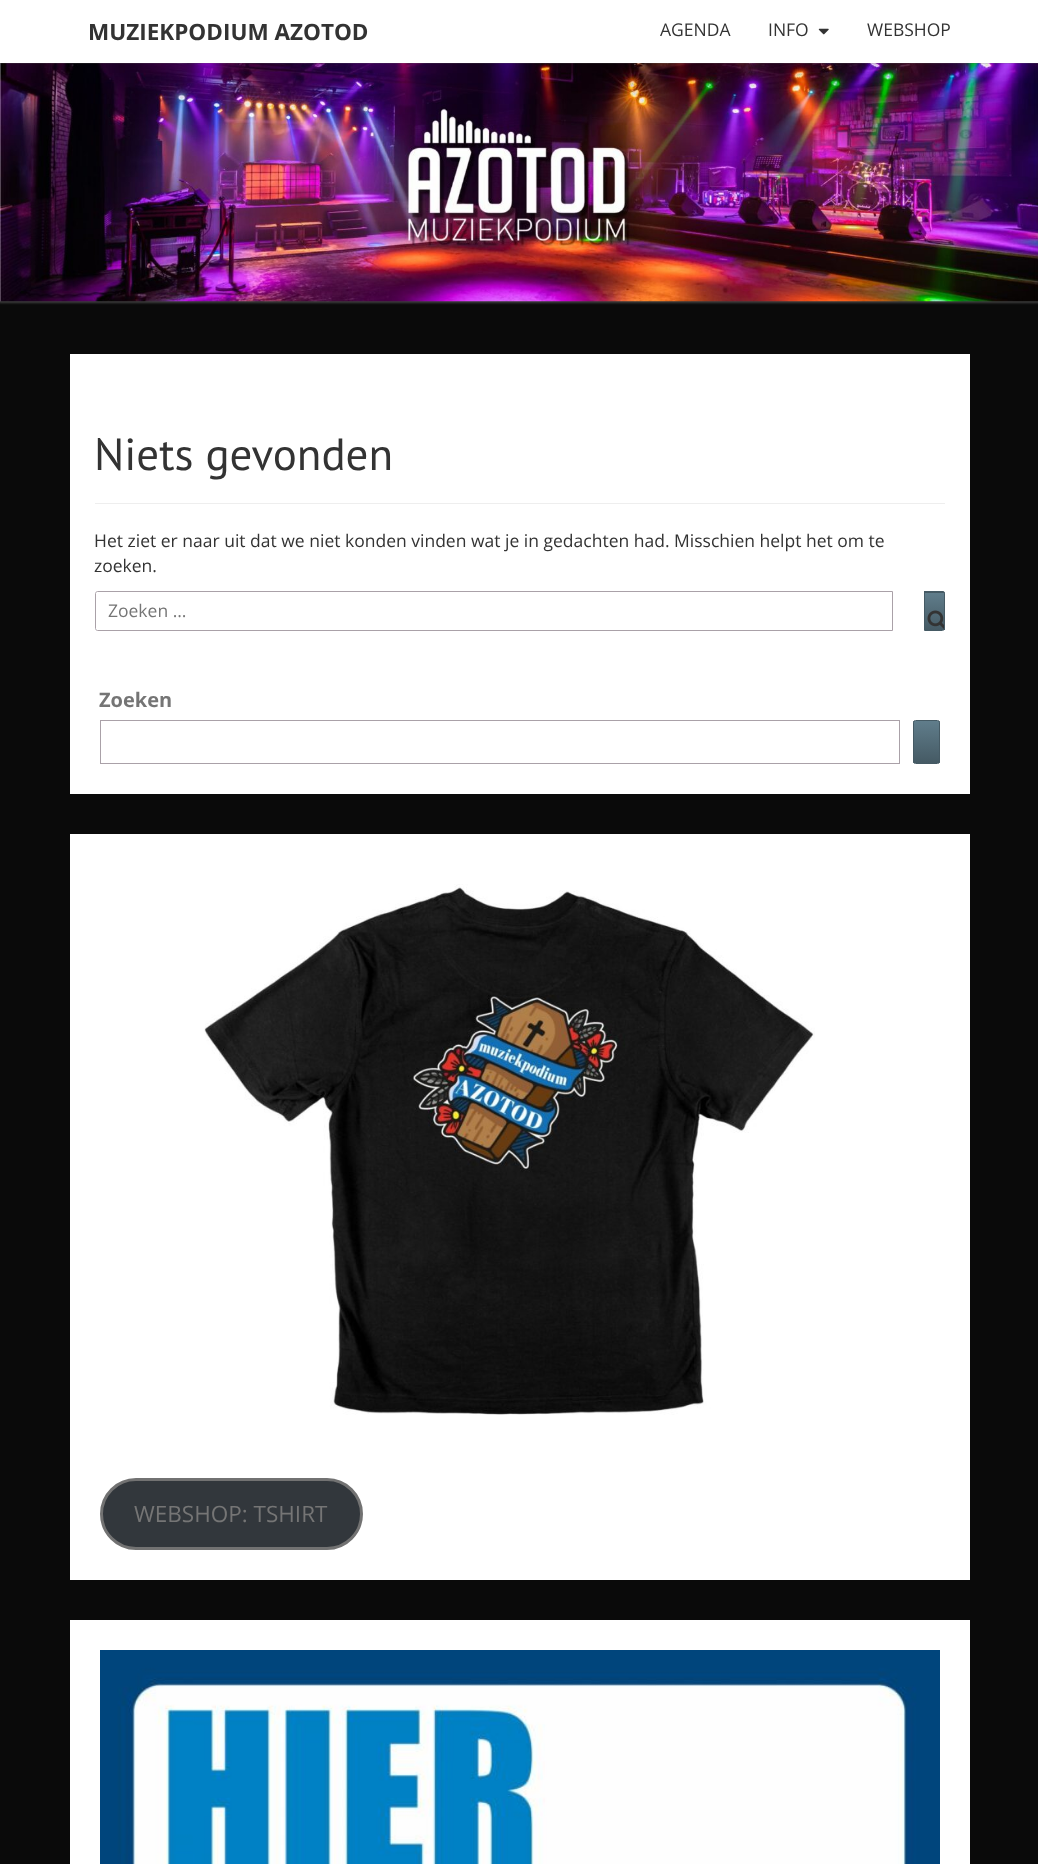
<svg xmlns="http://www.w3.org/2000/svg" width="1038" height="1864" viewBox="0 0 1038 1864">
  <defs>
    <filter id="blur1" x="-50%" y="-200%" width="200%" height="500%"><feGaussianBlur stdDeviation="1"/></filter>
    <filter id="blur2" x="-50%" y="-200%" width="200%" height="500%"><feGaussianBlur stdDeviation="0.5"/></filter>
    <clipPath id="clip1"><path d="M924 591H942.5C944 591 945 592 945 593.5V628.5C945 630 944 631 942.5 631H924Z"/></clipPath>
    <linearGradient id="g1" gradientUnits="userSpaceOnUse" x1="934" y1="555" x2="934" y2="593"><stop offset="0" stop-color="#607d8b"/><stop offset="1" stop-color="#455a64"/></linearGradient>
    <linearGradient id="g2" gradientUnits="userSpaceOnUse" x1="934" y1="593" x2="934" y2="630"><stop offset="0" stop-color="#607d8b"/><stop offset="1" stop-color="#455a64"/></linearGradient>
    <clipPath id="clip2"><rect x="913" y="720" width="27" height="44" rx="2.5"/></clipPath>
    <linearGradient id="g3" gradientUnits="userSpaceOnUse" x1="926" y1="721" x2="926" y2="763"><stop offset="0" stop-color="#607d8b"/><stop offset="1" stop-color="#455a64"/></linearGradient>
  </defs>
  <rect width="100%" height="100%" fill="#0a0a0a"/>
  <rect x="-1" y="61" width="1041" height="242" fill="#b6b6b6" fill-opacity="0.3" filter="url(#blur1)"/>
  <image x="0" y="63" width="1038" height="239" href="img2.png"/>
  <rect x="0" y="1" width="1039" height="63" fill="#646464" fill-opacity="0.2" filter="url(#blur2)"/>
  <rect x="0" y="0" width="1038" height="63" fill="#ffffff"/>
  <text x="88" y="40" font-family="Open Sans" font-size="22.5" font-weight="bold" fill="#333333">MUZIEKPODIUM AZOTOD</text>
  <text x="660" y="36" font-family="Open Sans" font-size="17.5" fill="#333333">AGENDA</text>
  <text x="768" y="36" font-family="Open Sans" font-size="17.5" fill="#333333">INFO</text>
  <image x="818" y="28" width="11" height="7" href="img1.png"/>
  <text x="867" y="36" font-family="Open Sans" font-size="17.5" fill="#333333">WEBSHOP</text>
  <rect x="70" y="354" width="900" height="440" fill="#ffffff"/>
  <rect x="95" y="503" width="850" height="1" fill="#eeeeee"/>
  <text x="94" y="470" font-family="PT Sans" font-size="45" fill="#333333">Niets gevonden</text>
  <text x="94" y="547" font-family="Open Sans" font-size="17.5" fill="#333333">Het ziet er naar uit dat we niet konden vinden wat je in gedachten had. Misschien helpt het om te</text>
  <text x="94" y="572" font-family="Open Sans" font-size="17.5" fill="#333333">zoeken.</text>
  <path d="M97.5 591.5H892.5V630.5H97.5C96.5 630.5 95.5 629.5 95.5 628.5V593.5C95.5 592.5 96.5 591.5 97.5 591.5Z" fill="none" stroke="#aaa1a8"/>
  <text x="108" y="617" font-family="Open Sans" font-size="17.5" fill="#757575">Zoeken …</text>
  <g clip-path="url(#clip1)">
    <rect x="924" y="591" width="21" height="2" fill="url(#g1)"/>
  </g>
  <rect x="925" y="593" width="20" height="37" fill="url(#g2)"/>
  <path d="M924.5 591.5H942.5C943.5 591.5 944.5 592.5 944.5 593.5V628.5C944.5 629.5 943.5 630.5 942.5 630.5H924.5Z" fill="none" stroke="#455a64"/>
  <image x="927" y="610" width="17" height="19" href="img3.png"/>
  <text x="99" y="707" font-family="Open Sans" font-size="20" font-weight="bold" fill="#757575">Zoeken</text>
  <rect x="100.5" y="720.5" width="799" height="43" fill="none" stroke="#aaa1a8"/>
  <g clip-path="url(#clip2)">
    <rect x="913" y="721" width="27" height="42" fill="url(#g3)"/>
  </g>
  <rect x="913.5" y="720.5" width="26" height="43" rx="2" fill="none" stroke="#455a64"/>
  <rect x="70" y="834" width="900" height="746" fill="#ffffff"/>
  <image x="204" y="884" width="611" height="531" href="img4.png"/>
  <rect x="101.5" y="1479.5" width="260" height="69" rx="34.5" fill="#32373c" stroke="#727272" stroke-width="3"/>
  <text x="134" y="1522" font-family="Open Sans" font-size="22.5" fill="#757575">WEBSHOP: TSHIRT</text>
  <rect x="70" y="1620" width="900" height="244" fill="#ffffff"/>
  <image x="100" y="1650" width="840" height="214" href="img5.png"/>
</svg>
